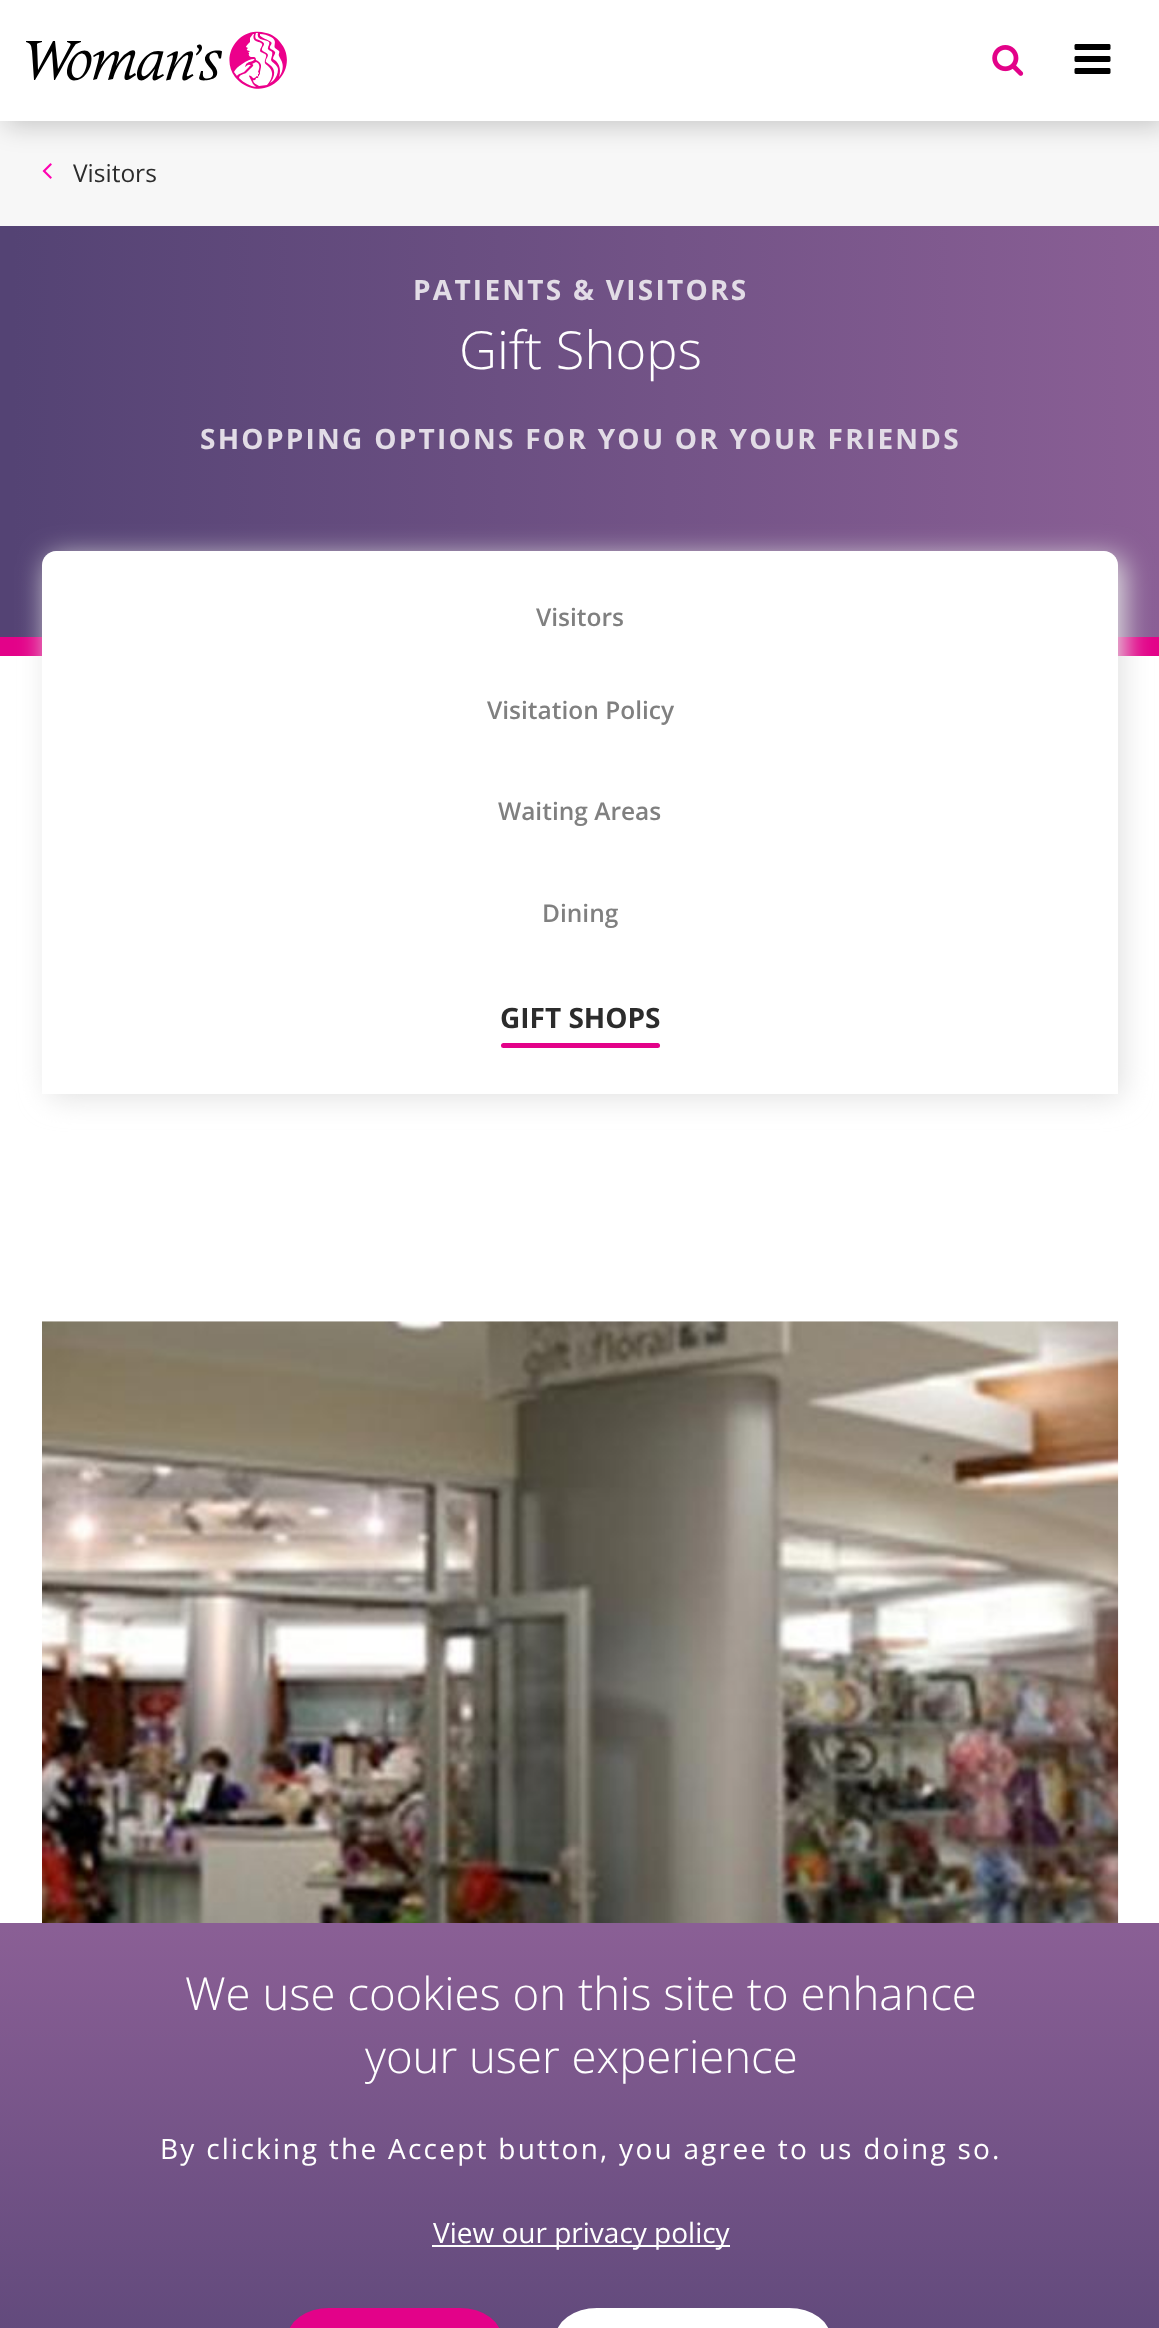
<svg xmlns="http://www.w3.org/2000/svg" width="1159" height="2328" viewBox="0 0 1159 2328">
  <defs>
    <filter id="blur1" x="-50%" y="-200%" width="200%" height="500%"><feGaussianBlur stdDeviation="13"/></filter>
    <linearGradient id="g1" gradientUnits="userSpaceOnUse" x1="0" y1="441" x2="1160" y2="441"><stop offset="0.01" stop-color="#544374"/><stop offset="1" stop-color="#8a5f95"/></linearGradient>
    <filter id="blur2" x="-50%" y="-200%" width="200%" height="500%"><feGaussianBlur stdDeviation="14"/></filter>
    <linearGradient id="g2" gradientUnits="userSpaceOnUse" x1="580" y1="1923" x2="580" y2="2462"><stop offset="0.01" stop-color="#8a5f95"/><stop offset="1" stop-color="#554374"/></linearGradient>
  </defs>
  <rect width="100%" height="100%" fill="#ffffff"/>
  <rect x="0" y="121" width="1159" height="105" fill="#f7f7f7"/>
  <image x="42" y="163" width="10" height="16" href="img3.png"/>
  <rect x="5" y="5" width="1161" height="121" fill="#000000" fill-opacity="0.2" filter="url(#blur1)"/>
  <rect x="0" y="0" width="1159" height="121" fill="#ffffff"/>
  <path d="M26 41V42C32 44 31 46 32 51L34 80H35L52 51L54 80H55C58 75 74 45 76 44L81 42V41H67V42C69 43 72 43 70 46L58 69L55 41H53L38 70L37 44C37 43 40 43 42 42V41Z" fill="#000000"/>
  <path d="M84.5 50.5C76 50.5 67 62.5 67 72.5C67 76 70 80.5 74 80.5C84.5 80.5 91.5 68.5 91.5 58.5C91.5 54 88.5 50.5 84.5 50.5ZM77.5 78C67 78 72.5 54.5 81.5 53.5C82.5 53.5 84 54 85 55C90 60.5 84.5 78 77.5 78Z" fill="#000000" fill-rule="evenodd"/>
  <path d="M136 75L135 73C130 76 128 78 130 71L133 60C135 56 138 48 130 51L124 55C121 58 118 62 116 66C117 63 119 57 119 53C119 52 118 51 116 51C110 51 100 66 100 66C102 62 105 56 104 52C104 48 94 55 93 56L94 57C100 54 100 53 98 62L93 80L97 79C100 70 103 63 111 56C118 51 113 64 112 66L108 80L113 79C115 71 119 63 125 58C126 57 128 55 130 55C134 56 116 86 130 79Z" fill="#000000"/>
  <path d="M155 69L154 72C152.5 76 150.5 83 157.5 79.5L164 75.5L163 74L159 76C155.5 77 158 73 158 71L163.5 51.5L158 51C147 51 137 64.5 137 74.5C137 77.5 138 80.5 141.5 80.5C147 80.5 154 70 155 69ZM158.5 54.5C157.5 61 155.5 66 151 71C136 88 141 59 152 54.5C154 54 156.5 54 158.5 54.5Z" fill="#000000" fill-rule="evenodd"/>
  <path d="M173 56L172 61L167 77L166 80.5L170.5 79.5L172.5 73C174.5 67.5 178 62 182.5 58C183.5 57 186 55 187.5 55C192 56.5 174 86.5 187.5 79.5L193.5 75.5L192.5 74L188.5 76C185.5 77.5 187.5 72.5 188 71.5L191.5 61C192.5 56.5 196 48.5 187.5 52C185.5 52.5 183.5 54.5 182 56C179 59 176 62.5 174 66.5C175.5 62 177.5 57.5 178 52.5C178.5 48 167.5 56 167 56L167.5 57.5C168.5 57 173 54 173 56ZM218 55.5L219 58.5H221L222 51.5C221.5 50 207.5 49 205 57.5C203.5 64 215 69.5 213 75C212 78.5 205.5 80 203.5 77C202.5 75.5 203 73 203 71H201L199 78C199.5 82.5 211.5 79.5 213.5 78.5C215 77.5 216.5 76.5 217 74.5C219.5 67 206.5 61 210 55C210.5 54 212.5 53 214 52.5C216.5 52.5 217.5 53.5 218 55.5Z" fill="#000000"/>
  <path d="M202 47.5C202 46.5 201.5 45 200 44.5C199 44.5 196.5 45 197 46.5C197.5 48.5 200 48 198.5 51L196 54L196.5 55.5C196.5 55.5 202.5 51 202 47.5Z" fill="#000000"/>
  <path d="M235 77C239 82 245 86 252 88C278 94 298 63 280 42C277 38 272 34 266 33C240 25 219 55 235 77ZM273 81L270 83C274 78 277 70 270 65L266 62C265 60 268 57 268 55C267 52 263 52 262 50C261 46 269 44 259 40L256 39C255 37 255 36 256 33H258C256 41 265 39 269 42C270 44 268 46 268 48C267 50 271 51 272 52C273 54 271 58 271 60C272 63 277 64 278 69C278 74 276 78 273 81ZM271 37C278 41 273 45 275 48L279 51C280 53 278 54 279 56L281 60C284 65 283 72 279 77C281 71 280 65 276 61L273 59C273 56 276 54 275 52C274 50 270 49 270 48C269 46 273 44 271 42C269 40 259 37 260 35V34C264 34 267 35 271 37ZM254 57H251C250 57 248 55 249 54V53C248 53 248 52 249 52L250 51C250 51 246 51 247 49L248 48L246 47C246 46 249 43 250 42V38L253 34H254C251 43 261 41 262 44C263 46 260 48 260 51C261 53 265 53 266 55C267 57 264 60 265 63C265 64 267 65 268 66C275 72 272 79 267 85L259 86C257 85 253 83 253 80C255 81 256 79 256 78C257 78 259 78 258 77H257L259 76V75L260 74V72L261 67V65C260 62 258 61 256 60C256 58 255 57 254 57ZM234 72C236 67 248 59 254 59C256 60 250 62 249 62L246 64C246 65 245 66 245 67C247 66 248 64 250 65C252 65 249 66 249 67L244 72C242 73 238 74 237 76ZM253 78L251 76C250 76 249 75 249 76L250 78L253 84L256 87C250 86 244 83 239 78C239 75 244 74 246 73L250 69C252 67 255 65 252 64L256 62C259 63 260 66 259 69L258 72L259 73C259 74 258 74 258 74V76H256C258 76 254 79 253 78Z" fill="#ec008b" fill-rule="evenodd"/>
  <image x="992" y="45" width="32" height="31" href="img1.png"/>
  <image x="1074" y="44" width="37" height="30" href="img2.png"/>
  <text x="73" y="182" font-family="Open Sans" font-size="24.5" fill="#2c2c2c">Visitors</text>
  <rect x="0" y="226" width="1159" height="411" fill="url(#g1)"/>
  <rect x="0" y="637" width="1159" height="19" fill="#e30289"/>
  <text x="413" y="300" font-family="Open Sans" font-size="28" font-weight="bold" letter-spacing="2.25" fill="#e2dce6">PATIENTS &amp; VISITORS</text>
  <text x="459" y="369" font-family="Open Sans" font-size="52.5" font-weight="300" fill="#ffffff">Gift Shops</text>
  <text x="200" y="449" font-family="Open Sans" font-size="28" font-weight="bold" letter-spacing="2.25" fill="#e2dce6">SHOPPING OPTIONS FOR YOU OR YOUR FRIENDS</text>
  <rect x="47" y="557" width="1077" height="542" rx="14" fill="#e3e3e3" filter="url(#blur2)"/>
  <path d="M56 551H1104C1111.5 551 1118 557.5 1118 565V1094H42V565C42 557.5 48.5 551 56 551Z" fill="#ffffff"/>
  <text x="536" y="626" font-family="Open Sans" font-size="24.5" font-weight="600" fill="#808080">Visitors</text>
  <text x="487" y="719" font-family="Open Sans" font-size="24.5" font-weight="600" fill="#808080">Visitation Policy</text>
  <text x="498" y="820" font-family="Open Sans" font-size="24.5" font-weight="600" fill="#808080">Waiting Areas</text>
  <text x="542" y="922" font-family="Open Sans" font-size="24.5" font-weight="600" fill="#808080">Dining</text>
  <text x="500" y="1028" font-family="Open Sans" font-size="28" font-weight="bold" fill="#2c2c2c">GIFT SHOPS</text>
  <rect x="501" y="1043" width="159" height="5" rx="2.5" fill="#e30289"/>
  <image x="42" y="1321" width="1077" height="602" href="img4.png"/>
  <rect x="0" y="1923" width="1159" height="405" fill="url(#g2)"/>
  <text x="185" y="2010" font-family="Open Sans" font-size="45.5" font-weight="300" fill="#ffffff">We use cookies on this site to enhance</text>
  <text x="365" y="2073" font-family="Open Sans" font-size="45.5" font-weight="300" fill="#ffffff">your user experience</text>
  <text x="160" y="2159" font-family="Open Sans" font-size="28" letter-spacing="2.25" fill="#ffffff">By clicking the Accept button, you agree to us doing so.</text>
  <rect x="432" y="2245" width="298" height="2" fill="#ffffff"/>
  <text x="433" y="2243" font-family="Open Sans" font-size="28" fill="#ffffff">View our privacy policy</text>
  <rect x="287" y="2308" width="215" height="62" rx="42" fill="#e30289"/>
  <rect x="555" y="2308" width="276" height="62" rx="42" fill="#ffffff"/>
</svg>
